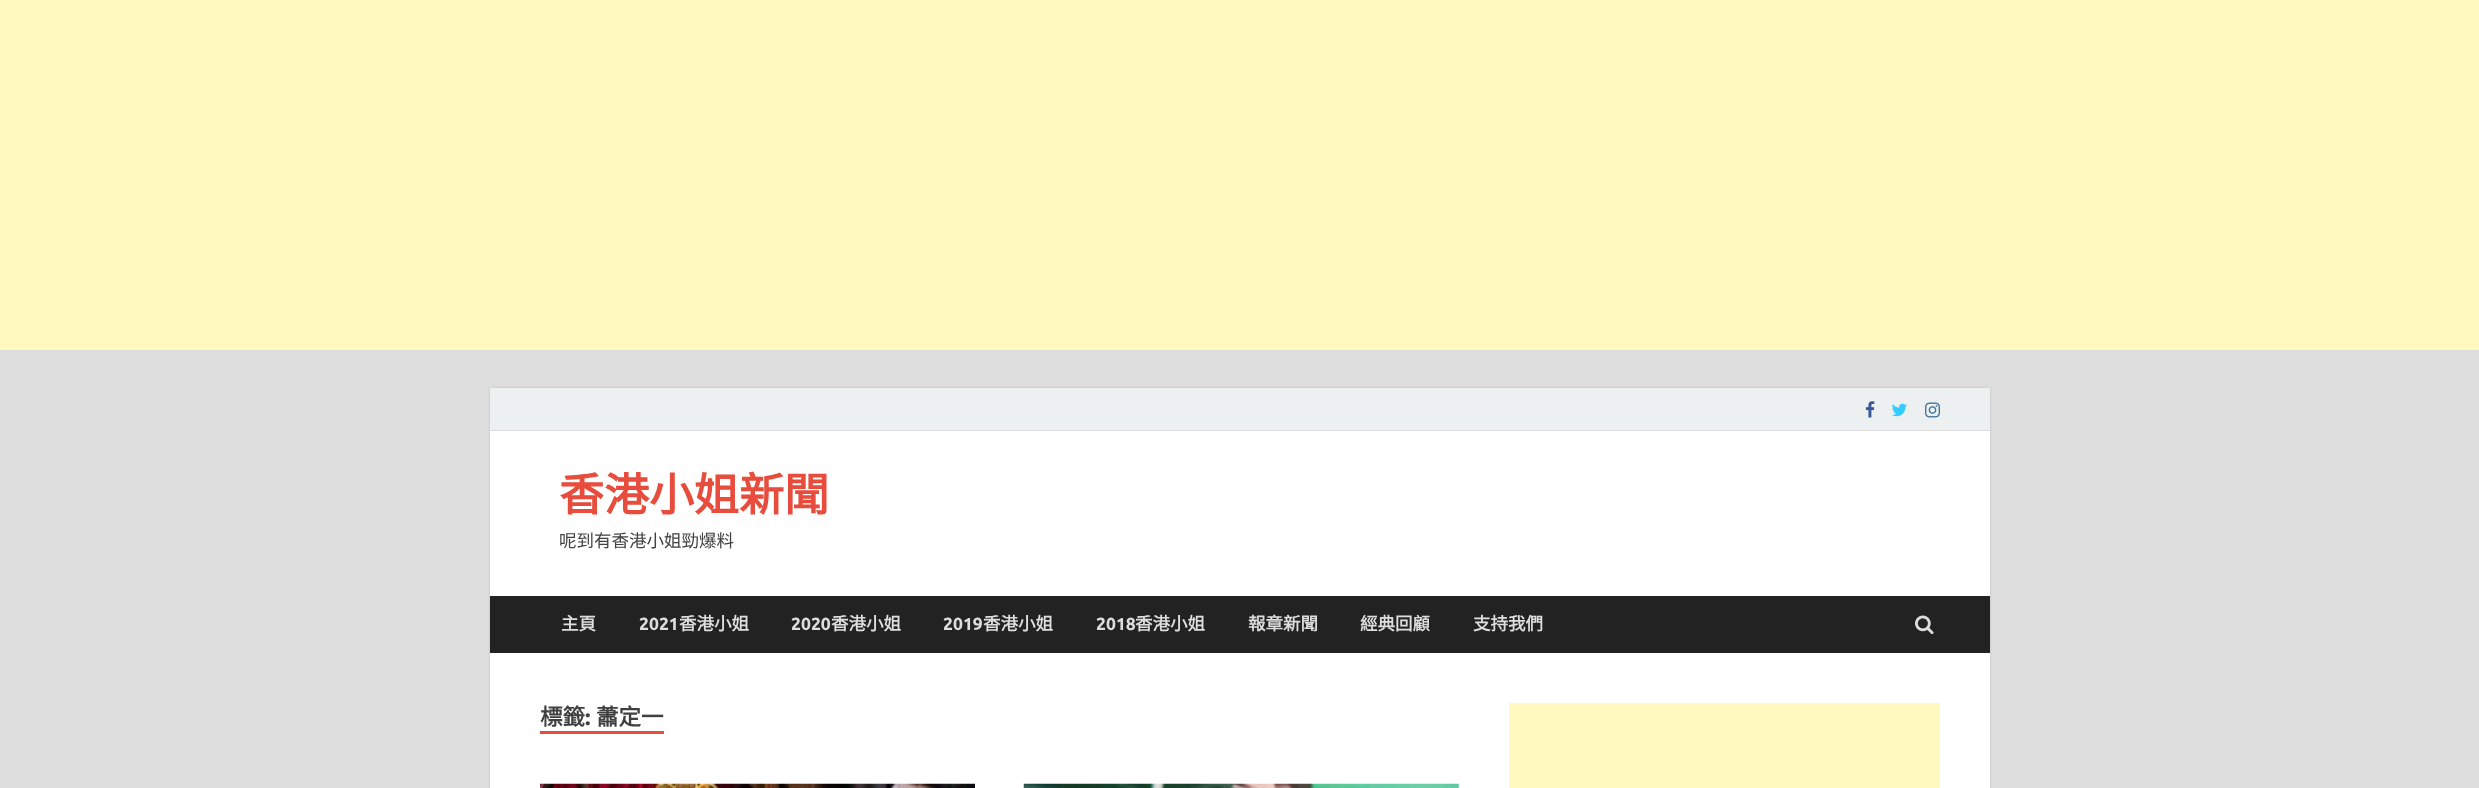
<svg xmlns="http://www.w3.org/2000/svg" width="2479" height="788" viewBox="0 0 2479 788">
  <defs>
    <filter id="blur1" x="-50%" y="-200%" width="200%" height="500%"><feGaussianBlur stdDeviation="1"/></filter>
  </defs>
  <rect width="100%" height="100%" fill="#dddddd"/>
  <rect x="0" y="0" width="2479" height="350" fill="#fff9c0"/>
  <rect x="490" y="388" width="1500" height="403" fill="#bbbbbb" filter="url(#blur1)"/>
  <rect x="490" y="431" width="1500" height="357" fill="#ffffff"/>
  <rect x="490" y="388" width="1500" height="42" fill="#ecf0f1"/>
  <rect x="490" y="430" width="1500" height="1" fill="#dddddd"/>
  <image x="1865" y="401" width="10" height="17" href="img1.png"/>
  <image x="1892" y="403" width="15" height="14" href="img2.png"/>
  <image x="1925" y="402" width="15" height="16" href="img3.png"/>
  <text x="559" y="511" font-family="Noto Sans CJK HK" font-size="45" font-weight="bold" fill="#e74c3c">香港小姐新聞</text>
  <text x="559" y="547" font-family="Noto Sans CJK HK" font-size="17.5" fill="#404040">呢到有香港小姐勁爆料</text>
  <rect x="490" y="596" width="1500" height="57" fill="#222222"/>
  <text x="561" y="630" font-family="Noto Sans CJK HK" font-size="17.5" font-weight="bold" fill="#dddddd">主頁</text>
  <text x="639" y="630" font-family="Ubuntu" font-size="17.5" font-weight="bold" fill="#dddddd">2021</text>
  <text x="679" y="630" font-family="Noto Sans CJK HK" font-size="17.5" font-weight="bold" fill="#dddddd">香港小姐</text>
  <text x="791" y="630" font-family="Ubuntu" font-size="17.5" font-weight="bold" fill="#dddddd">2020</text>
  <text x="831" y="630" font-family="Noto Sans CJK HK" font-size="17.5" font-weight="bold" fill="#dddddd">香港小姐</text>
  <text x="943" y="630" font-family="Ubuntu" font-size="17.5" font-weight="bold" fill="#dddddd">2019</text>
  <text x="983" y="630" font-family="Noto Sans CJK HK" font-size="17.5" font-weight="bold" fill="#dddddd">香港小姐</text>
  <text x="1096" y="630" font-family="Ubuntu" font-size="17.5" font-weight="bold" fill="#dddddd">2018</text>
  <text x="1135" y="630" font-family="Noto Sans CJK HK" font-size="17.5" font-weight="bold" fill="#dddddd">香港小姐</text>
  <text x="1248" y="630" font-family="Noto Sans CJK HK" font-size="17.5" font-weight="bold" fill="#dddddd">報章新聞</text>
  <text x="1360" y="630" font-family="Noto Sans CJK HK" font-size="17.5" font-weight="bold" fill="#dddddd">經典回顧</text>
  <text x="1473" y="630" font-family="Noto Sans CJK HK" font-size="17.5" font-weight="bold" fill="#dddddd">支持我們</text>
  <image x="1915" y="615" width="19" height="20" href="img4.png"/>
  <text x="540" y="725" font-family="Noto Sans CJK HK" font-size="22.5" font-weight="bold" fill="#404040">標籤</text>
  <text x="585" y="725" font-family="Ubuntu" font-size="22.5" font-weight="bold" fill="#404040">:</text>
  <rect x="540" y="731" width="124" height="3" fill="#e74c3c"/>
  <text x="596" y="725" font-family="Noto Sans CJK HK" font-size="22.5" font-weight="bold" fill="#404040">蕭定一</text>
  <image x="540" y="783" width="435" height="5" href="img5.png"/>
  <image x="1023" y="783" width="436" height="5" href="img6.png"/>
  <rect x="1509" y="703" width="431" height="85" fill="#fff9c0"/>
</svg>
